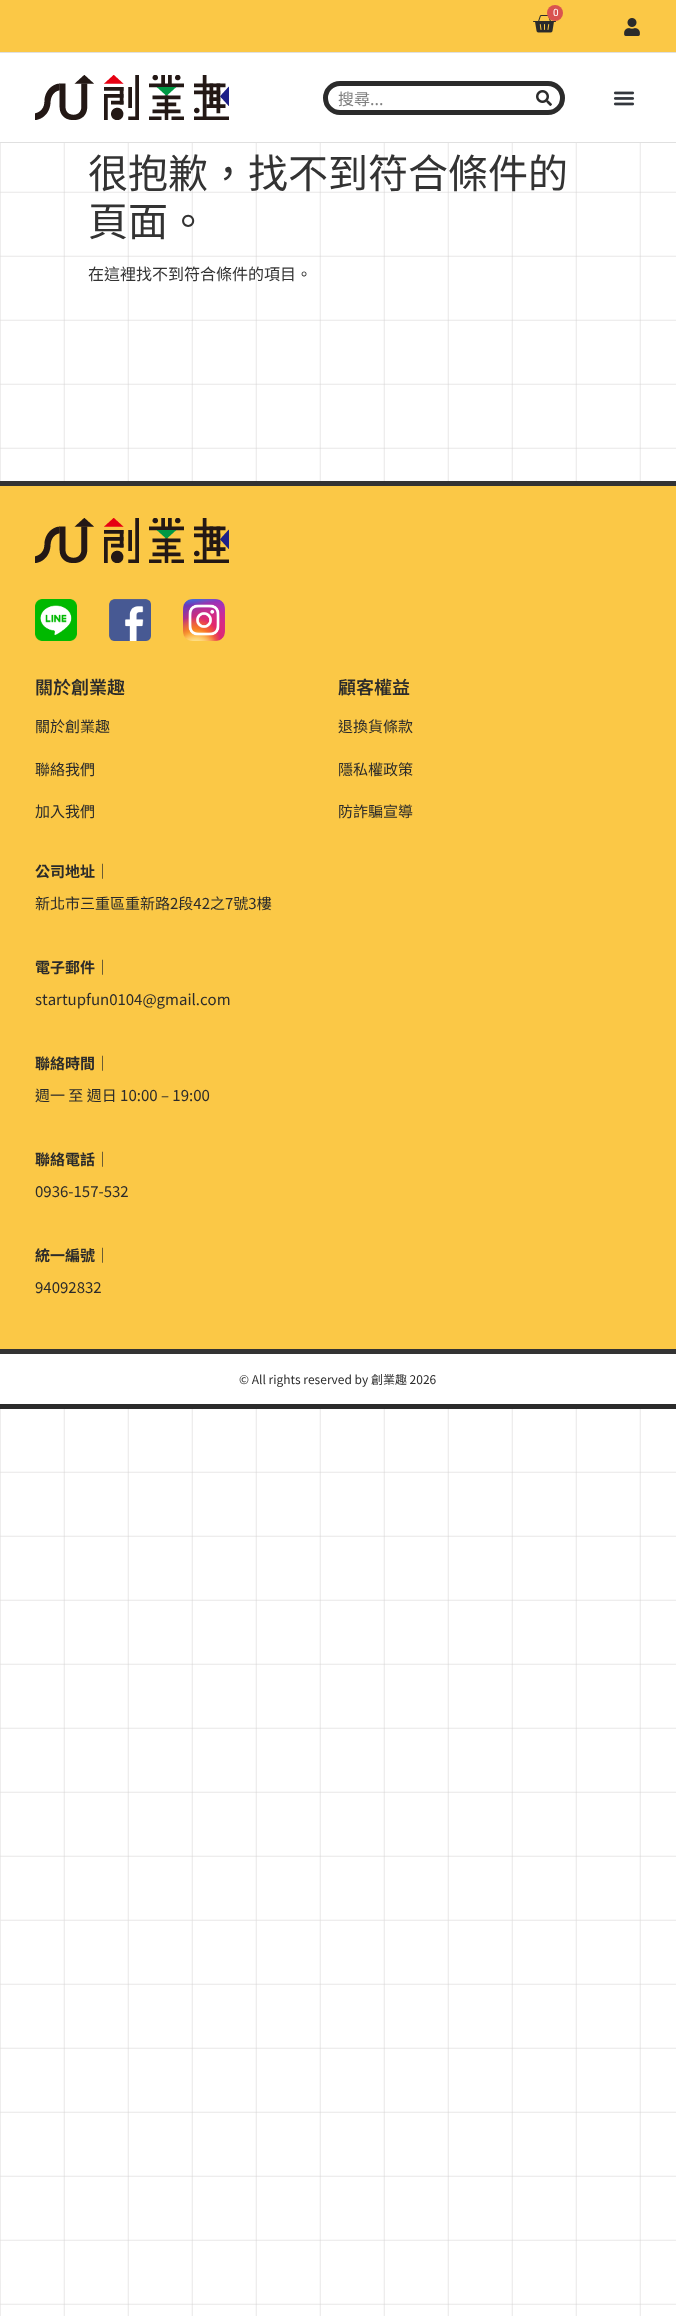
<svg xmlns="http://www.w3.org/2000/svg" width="676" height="2316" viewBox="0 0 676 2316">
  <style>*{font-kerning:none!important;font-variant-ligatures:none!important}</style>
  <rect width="100%" height="100%" fill="#ffffff"/>
  <image x="0" y="143" width="676" height="2173" href="img1.png"/>
  <rect x="0" y="0" width="676" height="52" fill="#fbc846"/>
  <image x="533" y="15" width="23" height="18" href="img2.png"/>
  <circle cx="555" cy="13" r="8" fill="#d9534f"/>
  <text x="553" y="16" font-family="Roboto" font-size="10" fill="#ffffff">0</text>
  <image x="624" y="18" width="16" height="18" href="img3.png"/>
  <rect x="0" y="52" width="676" height="1" fill="#e0e0e0"/>
  <rect x="0" y="142" width="676" height="1" fill="#e0e0e0"/>
  <image x="35" y="75" width="194" height="45" href="img4.png"/>
  <rect x="325.5" y="83.5" width="237" height="29" rx="14.5" fill="none" stroke="#2b2b2b" stroke-width="5"/>
  <text x="338" y="105" font-family="Noto Sans TC" font-size="16" fill="#808080">搜尋...</text>
  <image x="536" y="90" width="16" height="16" href="img5.png"/>
  <image x="613" y="91" width="22" height="15" href="img6.png"/>
  <text x="88" y="188" font-family="Noto Sans CJK TC" font-size="40" fill="#333333">很抱歉，找不到符合條件的</text>
  <text x="88" y="236" font-family="Noto Sans CJK TC" font-size="40" fill="#333333">頁面。</text>
  <text x="88" y="280" font-family="Noto Sans CJK TC" font-size="16" fill="#333333">在這裡找不到符合條件的項目。</text>
  <rect x="0" y="486" width="676" height="863" fill="#fbc846"/>
  <rect x="0" y="481" width="676" height="5" fill="#333333"/>
  <rect x="0" y="1349" width="676" height="5" fill="#333333"/>
  <image x="35" y="518" width="194" height="45" href="img7.png"/>
  <image x="35" y="599" width="42" height="42" href="img8.png"/>
  <image x="109" y="599" width="42" height="42" href="img9.png"/>
  <image x="183" y="599" width="42" height="42" href="img10.png"/>
  <text x="35" y="694" font-family="Noto Sans TC" font-size="18" font-weight="600" fill="#2b2b2b">關於創業趣</text>
  <text x="35" y="732" font-family="Noto Sans TC" font-size="15" fill="#2b2b2b">關於創業趣</text>
  <text x="35" y="775" font-family="Noto Sans TC" font-size="15" fill="#2b2b2b">聯絡我們</text>
  <text x="35" y="817" font-family="Noto Sans TC" font-size="15" fill="#2b2b2b">加入我們</text>
  <text x="338" y="694" font-family="Noto Sans TC" font-size="18" font-weight="600" fill="#2b2b2b">顧客權益</text>
  <text x="338" y="732" font-family="Noto Sans TC" font-size="15" fill="#2b2b2b">退換貨條款</text>
  <text x="338" y="775" font-family="Noto Sans TC" font-size="15" fill="#2b2b2b">隱私權政策</text>
  <text x="338" y="817" font-family="Noto Sans TC" font-size="15" fill="#2b2b2b">防詐騙宣導</text>
  <text x="35" y="877" font-family="Noto Sans TC" font-size="15" font-weight="bold" fill="#2b2b2b">公司地址｜</text>
  <text x="35" y="909" font-family="Noto Sans TC" font-size="15" fill="#2b2b2b">新北市三重區重新路2段42之7號3樓</text>
  <text x="35" y="973" font-family="Noto Sans TC" font-size="15" font-weight="bold" fill="#2b2b2b">電子郵件｜</text>
  <text x="35" y="1005" font-family="Noto Sans TC" font-size="15" fill="#2b2b2b">startupfun0104@gmail.com</text>
  <text x="35" y="1069" font-family="Noto Sans TC" font-size="15" font-weight="bold" fill="#2b2b2b">聯絡時間｜</text>
  <text x="35" y="1101" font-family="Noto Sans TC" font-size="15" fill="#2b2b2b">週一 至 週日 10:00 – 19:00</text>
  <text x="35" y="1165" font-family="Noto Sans TC" font-size="15" font-weight="bold" fill="#2b2b2b">聯絡電話｜</text>
  <text x="35" y="1197" font-family="Noto Sans TC" font-size="15" fill="#2b2b2b">0936-157-532</text>
  <text x="35" y="1261" font-family="Noto Sans TC" font-size="15" font-weight="bold" fill="#2b2b2b">統一編號｜</text>
  <text x="35" y="1293" font-family="Noto Sans TC" font-size="15" fill="#2b2b2b">94092832</text>
  <rect x="0" y="1354" width="641" height="50" fill="#ffffff"/>
  <rect x="0" y="1404" width="676" height="5" fill="#2b2b2b"/>
  <text x="239" y="1384" font-family="Noto Sans TC" font-size="12" fill="#2b2b2b">© All rights reserved by 創業趣 2026</text>
</svg>
